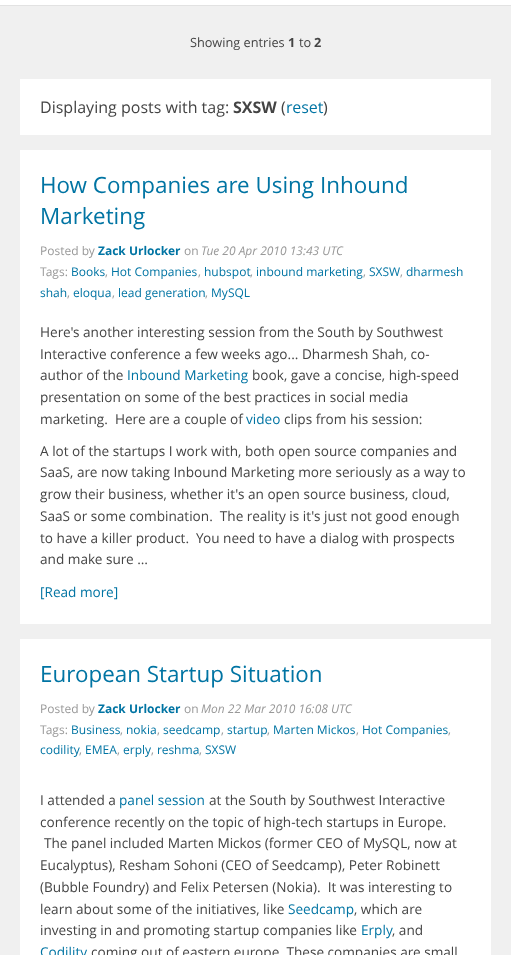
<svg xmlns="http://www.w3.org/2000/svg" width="511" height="955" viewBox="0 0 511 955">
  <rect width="100%" height="100%" fill="#f0f0f0"/>
  <rect x="0" y="0" width="511" height="5" fill="#ffffff"/>
  <rect x="0" y="5" width="511" height="1" fill="#e2e2e2"/>
  <text x="190" y="47" font-family="Open Sans" font-size="12.75" fill="#444444">Showing entries</text>
  <text x="288" y="47" font-family="Open Sans" font-size="12.75" font-weight="bold" fill="#444444">1</text>
  <text x="299" y="47" font-family="Open Sans" font-size="12.75" fill="#444444">to</text>
  <text x="314" y="47" font-family="Open Sans" font-size="12.75" font-weight="bold" fill="#444444">2</text>
  <rect x="20" y="79" width="471" height="56" fill="#ffffff"/>
  <text x="40" y="113" font-family="Open Sans" font-size="16" fill="#444444">Displaying posts with tag:</text>
  <text x="233" y="113" font-family="Open Sans" font-size="16" font-weight="bold" fill="#444444">SXSW</text>
  <text x="281" y="113" font-family="Open Sans" font-size="16" fill="#444444">(</text>
  <text x="286" y="113" font-family="Open Sans" font-size="16" fill="#0074a3">reset</text>
  <text x="323" y="113" font-family="Open Sans" font-size="16" fill="#444444">)</text>
  <rect x="20" y="150" width="471" height="474" fill="#ffffff"/>
  <text x="40" y="193" font-family="Open Sans" font-size="22.4" fill="#0074a3">How Companies are Using Inhound</text>
  <text x="40" y="224" font-family="Open Sans" font-size="22.4" fill="#0074a3">Marketing</text>
  <text x="40" y="255" font-family="Open Sans" font-size="12" fill="#999999">Posted by</text>
  <text x="98" y="255" font-family="Open Sans" font-size="12" font-weight="bold" fill="#0074a3">Zack Urlocker</text>
  <text x="184" y="255" font-family="Open Sans" font-size="12" fill="#999999">on</text>
  <text x="201" y="255" font-family="Open Sans" font-size="12" font-style="italic" fill="#999999">Tue 20 Apr 2010 13:43 UTC</text>
  <text x="40" y="276" font-family="Open Sans" font-size="12" fill="#999999">Tags:</text>
  <text x="71" y="276" font-family="Open Sans" font-size="12" fill="#0074a3">Books</text>
  <text x="105" y="276" font-family="Open Sans" font-size="12" fill="#999999">,</text>
  <text x="111" y="276" font-family="Open Sans" font-size="12" fill="#0074a3">Hot Companies</text>
  <text x="198" y="276" font-family="Open Sans" font-size="12" fill="#999999">,</text>
  <text x="204" y="276" font-family="Open Sans" font-size="12" fill="#0074a3">hubspot</text>
  <text x="250" y="276" font-family="Open Sans" font-size="12" fill="#999999">,</text>
  <text x="256" y="276" font-family="Open Sans" font-size="12" fill="#0074a3">inbound marketing</text>
  <text x="363" y="276" font-family="Open Sans" font-size="12" fill="#999999">,</text>
  <text x="369" y="276" font-family="Open Sans" font-size="12" fill="#0074a3">SXSW</text>
  <text x="400" y="276" font-family="Open Sans" font-size="12" fill="#999999">,</text>
  <text x="406" y="276" font-family="Open Sans" font-size="12" fill="#0074a3">dharmesh</text>
  <text x="40" y="297" font-family="Open Sans" font-size="12" fill="#0074a3">shah</text>
  <text x="67" y="297" font-family="Open Sans" font-size="12" fill="#999999">,</text>
  <text x="73" y="297" font-family="Open Sans" font-size="12" fill="#0074a3">eloqua</text>
  <text x="112" y="297" font-family="Open Sans" font-size="12" fill="#999999">,</text>
  <text x="118" y="297" font-family="Open Sans" font-size="12" fill="#0074a3">lead generation</text>
  <text x="205" y="297" font-family="Open Sans" font-size="12" fill="#999999">,</text>
  <text x="211" y="297" font-family="Open Sans" font-size="12" fill="#0074a3">MySQL</text>
  <text x="40" y="337" font-family="Open Sans" font-size="13.6" fill="#444444">Here's another interesting session from the South by Southwest</text>
  <text x="40" y="359" font-family="Open Sans" font-size="13.6" fill="#444444">Interactive conference a few weeks ago... Dharmesh Shah, co-</text>
  <text x="40" y="380" font-family="Open Sans" font-size="13.6" fill="#444444">author of the</text>
  <text x="127" y="380" font-family="Open Sans" font-size="13.6" fill="#0074a3">Inbound Marketing</text>
  <text x="252" y="380" font-family="Open Sans" font-size="13.6" fill="#444444">book, gave a concise, high-speed</text>
  <text x="40" y="402" font-family="Open Sans" font-size="13.6" fill="#444444">presentation on some of the best practices in social media</text>
  <text x="40" y="424" font-family="Open Sans" font-size="13.6" fill="#444444" xml:space="preserve">marketing.  Here are a couple of</text>
  <text x="246" y="424" font-family="Open Sans" font-size="13.6" fill="#0074a3">video</text>
  <text x="284" y="424" font-family="Open Sans" font-size="13.6" fill="#444444">clips from his session:</text>
  <text x="40" y="456" font-family="Open Sans" font-size="13.6" fill="#444444">A lot of the startups I work with, both open source companies and</text>
  <text x="40" y="477" font-family="Open Sans" font-size="13.6" fill="#444444">SaaS, are now taking Inbound Marketing more seriously as a way to</text>
  <text x="40" y="499" font-family="Open Sans" font-size="13.6" fill="#444444">grow their business, whether it's an open source business, cloud,</text>
  <text x="40" y="521" font-family="Open Sans" font-size="13.6" fill="#444444" xml:space="preserve">SaaS or some combination.  The reality is it's just not good enough</text>
  <text x="40" y="543" font-family="Open Sans" font-size="13.6" fill="#444444" xml:space="preserve">to have a killer product.  You need to have a dialog with prospects</text>
  <text x="40" y="564" font-family="Open Sans" font-size="13.6" fill="#444444">and make sure …</text>
  <text x="40" y="597" font-family="Open Sans" font-size="13.6" fill="#0074a3">[Read more]</text>
  <rect x="20" y="639" width="471" height="316" fill="#ffffff"/>
  <text x="40" y="682" font-family="Open Sans" font-size="22.4" fill="#0074a3">European Startup Situation</text>
  <text x="40" y="713" font-family="Open Sans" font-size="12" fill="#999999">Posted by</text>
  <text x="98" y="713" font-family="Open Sans" font-size="12" font-weight="bold" fill="#0074a3">Zack Urlocker</text>
  <text x="184" y="713" font-family="Open Sans" font-size="12" fill="#999999">on</text>
  <text x="201" y="713" font-family="Open Sans" font-size="12" font-style="italic" fill="#999999">Mon 22 Mar 2010 16:08 UTC</text>
  <text x="40" y="734" font-family="Open Sans" font-size="12" fill="#999999">Tags:</text>
  <text x="71" y="734" font-family="Open Sans" font-size="12" fill="#0074a3">Business</text>
  <text x="120" y="734" font-family="Open Sans" font-size="12" fill="#999999">,</text>
  <text x="126" y="734" font-family="Open Sans" font-size="12" fill="#0074a3">nokia</text>
  <text x="157" y="734" font-family="Open Sans" font-size="12" fill="#999999">,</text>
  <text x="163" y="734" font-family="Open Sans" font-size="12" fill="#0074a3">seedcamp</text>
  <text x="221" y="734" font-family="Open Sans" font-size="12" fill="#999999">,</text>
  <text x="227" y="734" font-family="Open Sans" font-size="12" fill="#0074a3">startup</text>
  <text x="267" y="734" font-family="Open Sans" font-size="12" fill="#999999">,</text>
  <text x="273" y="734" font-family="Open Sans" font-size="12" fill="#0074a3">Marten Mickos</text>
  <text x="356" y="734" font-family="Open Sans" font-size="12" fill="#999999">,</text>
  <text x="362" y="734" font-family="Open Sans" font-size="12" fill="#0074a3">Hot Companies</text>
  <text x="448" y="734" font-family="Open Sans" font-size="12" fill="#999999">,</text>
  <text x="40" y="754" font-family="Open Sans" font-size="12" fill="#0074a3">codility</text>
  <text x="79" y="754" font-family="Open Sans" font-size="12" fill="#999999">,</text>
  <text x="85" y="754" font-family="Open Sans" font-size="12" fill="#0074a3">EMEA</text>
  <text x="117" y="754" font-family="Open Sans" font-size="12" fill="#999999">,</text>
  <text x="123" y="754" font-family="Open Sans" font-size="12" fill="#0074a3">erply</text>
  <text x="157" y="754" font-family="Open Sans" font-size="12" fill="#0074a3">reshma</text>
  <text x="205" y="754" font-family="Open Sans" font-size="12" fill="#0074a3">SXSW</text>
  <text x="151" y="754" font-family="Open Sans" font-size="12" fill="#999999">,</text>
  <text x="199" y="754" font-family="Open Sans" font-size="12" fill="#999999">,</text>
  <text x="40" y="805" font-family="Open Sans" font-size="13.6" fill="#444444">I attended a</text>
  <text x="119" y="805" font-family="Open Sans" font-size="13.6" fill="#0074a3">panel session</text>
  <text x="209" y="805" font-family="Open Sans" font-size="13.6" fill="#444444">at the South by Southwest Interactive</text>
  <text x="40" y="827" font-family="Open Sans" font-size="13.6" fill="#444444">conference recently on the topic of high-tech startups in Europe.</text>
  <text x="44" y="848" font-family="Open Sans" font-size="13.6" fill="#444444">The panel included Marten Mickos (former CEO of MySQL, now at</text>
  <text x="40" y="870" font-family="Open Sans" font-size="13.6" fill="#444444">Eucalyptus), Resham Sohoni (CEO of Seedcamp), Peter Robinett</text>
  <text x="40" y="892" font-family="Open Sans" font-size="13.6" fill="#444444" xml:space="preserve">(Bubble Foundry) and Felix Petersen (Nokia).  It was interesting to</text>
  <text x="40" y="914" font-family="Open Sans" font-size="13.6" fill="#444444">learn about some of the initiatives, like</text>
  <text x="288" y="914" font-family="Open Sans" font-size="13.6" fill="#0074a3">Seedcamp</text>
  <text x="354" y="914" font-family="Open Sans" font-size="13.6" fill="#444444">, which are</text>
  <text x="40" y="935" font-family="Open Sans" font-size="13.6" fill="#444444">investing in and promoting startup companies like</text>
  <text x="361" y="935" font-family="Open Sans" font-size="13.6" fill="#0074a3">Erply</text>
  <text x="392" y="935" font-family="Open Sans" font-size="13.6" fill="#444444">, and</text>
  <text x="40" y="957" font-family="Open Sans" font-size="13.6" fill="#0074a3">Codility</text>
  <text x="91" y="957" font-family="Open Sans" font-size="13.6" fill="#444444">coming out of eastern europe. These companies are small</text>
</svg>
